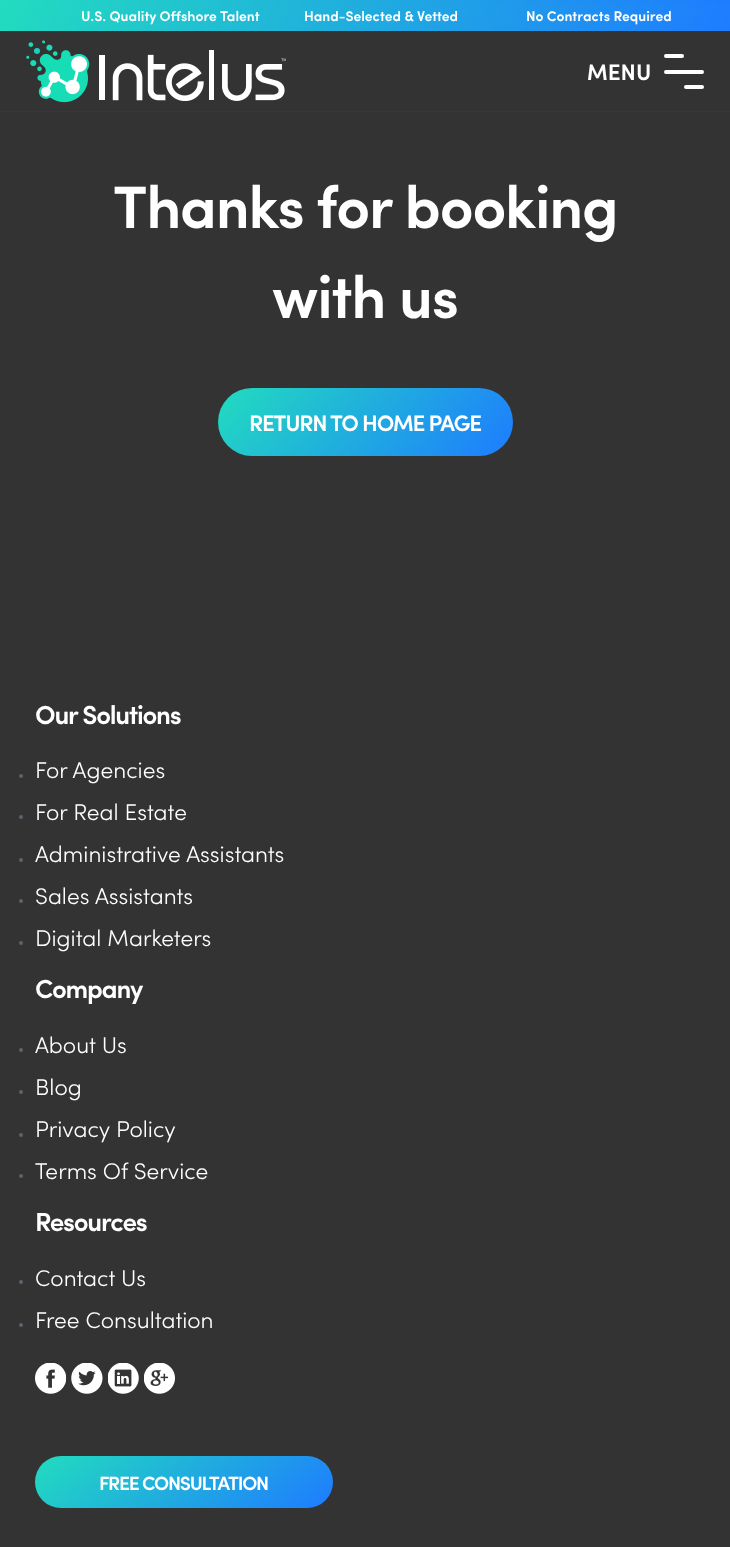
<svg xmlns="http://www.w3.org/2000/svg" width="730" height="1547" viewBox="0 0 730 1547">
  <defs>
    <linearGradient id="g1" gradientUnits="userSpaceOnUse" x1="0" y1="3.1" x2="730" y2="3.1"><stop offset="0" stop-color="#22dcbf"/><stop offset="1" stop-color="#1e7cff"/></linearGradient>
    <linearGradient id="g2" gradientUnits="userSpaceOnUse" x1="95" y1="-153" x2="635" y2="184"><stop offset="0" stop-color="#22dcbf"/><stop offset="1" stop-color="#1e7cff"/></linearGradient>
    <linearGradient id="g3" gradientUnits="userSpaceOnUse" x1="264" y1="334" x2="466" y2="510"><stop offset="0" stop-color="#22dcbf"/><stop offset="1" stop-color="#1e7cff"/></linearGradient>
    <linearGradient id="g4" gradientUnits="userSpaceOnUse" x1="112" y1="1394" x2="255" y2="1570"><stop offset="0" stop-color="#22dcbf"/><stop offset="1" stop-color="#1e7cff"/></linearGradient>
  </defs>
  <rect width="100%" height="100%" fill="#333333"/>
  <rect x="0" y="0" width="730" height="6" fill="url(#g1)"/>
  <rect x="0" y="6" width="730" height="25" fill="url(#g2)"/>
  <text x="81" y="21" font-family="'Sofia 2'" font-size="14" font-weight="600" fill="#ffffff">U.S. Quality Offshore Talent</text>
  <text x="304" y="21" font-family="'Sofia 2'" font-size="14" font-weight="600" fill="#ffffff">Hand-Selected &amp; Vetted</text>
  <text x="526" y="21" font-family="'Sofia 2'" font-size="14" font-weight="600" fill="#ffffff">No Contracts Required</text>
  <rect x="0" y="111" width="730" height="1" fill="#353739"/>
  <image x="26" y="40" width="260" height="63" href="img1.png"/>
  <text x="587" y="80" font-family="Sofia" font-size="22.5" font-weight="600" fill="#ffffff">MENU</text>
  <rect x="664" y="54" width="20" height="4" rx="2" fill="#ffffff"/>
  <rect x="664" y="70" width="40" height="4" rx="2" fill="#ffffff"/>
  <rect x="684" y="85" width="20" height="4" rx="2" fill="#ffffff"/>
  <text x="113" y="228" font-family="Sofia" font-size="60" font-weight="600" letter-spacing="-1.25" fill="#ffffff">Thanks for booking</text>
  <text x="272" y="318" font-family="Sofia" font-size="60" font-weight="600" letter-spacing="-1.25" fill="#ffffff">with us</text>
  <rect x="218" y="388" width="295" height="68" rx="34" fill="url(#g3)"/>
  <text x="249" y="431" font-family="Sofia" font-size="22.5" font-weight="600" letter-spacing="-1.25" fill="#ffffff">RETURN TO HOME PAGE</text>
  <text x="35" y="724" font-family="Sofia" font-size="26.25" font-weight="600" letter-spacing="-1.25" fill="#ffffff">Our Solutions</text>
  <circle cx="21" cy="776" r="2" fill="#5d6371"/>
  <text x="35" y="778" font-family="Sofia" font-size="22.75" font-weight="300" fill="#ffffff">For Agencies</text>
  <circle cx="21" cy="817" r="2" fill="#5d6371"/>
  <text x="35" y="820" font-family="Sofia" font-size="22.75" font-weight="300" fill="#ffffff">For Real Estate</text>
  <circle cx="21" cy="860" r="2" fill="#5d6371"/>
  <text x="35" y="862" font-family="Sofia" font-size="22.75" font-weight="300" fill="#ffffff">Administrative Assistants</text>
  <circle cx="21" cy="901" r="2" fill="#5d6371"/>
  <text x="35" y="904" font-family="Sofia" font-size="22.75" font-weight="300" fill="#ffffff">Sales Assistants</text>
  <circle cx="21" cy="943" r="2" fill="#5d6371"/>
  <text x="35" y="946" font-family="Sofia" font-size="22.75" font-weight="300" fill="#ffffff">Digital Marketers</text>
  <text x="35" y="998" font-family="Sofia" font-size="26.25" font-weight="600" letter-spacing="-1.25" fill="#ffffff">Company</text>
  <circle cx="21" cy="1050" r="2" fill="#5d6371"/>
  <text x="35" y="1053" font-family="Sofia" font-size="22.75" font-weight="300" fill="#ffffff">About Us</text>
  <circle cx="21" cy="1092" r="2" fill="#5d6371"/>
  <text x="35" y="1095" font-family="Sofia" font-size="22.75" font-weight="300" fill="#ffffff">Blog</text>
  <circle cx="21" cy="1135" r="2" fill="#5d6371"/>
  <text x="35" y="1137" font-family="Sofia" font-size="22.75" font-weight="300" fill="#ffffff">Privacy Policy</text>
  <circle cx="21" cy="1176" r="2" fill="#5d6371"/>
  <text x="35" y="1179" font-family="Sofia" font-size="22.75" font-weight="300" fill="#ffffff">Terms Of Service</text>
  <text x="35" y="1231" font-family="Sofia" font-size="26.25" font-weight="600" letter-spacing="-1.25" fill="#ffffff">Resources</text>
  <circle cx="21" cy="1282" r="2" fill="#5d6371"/>
  <text x="35" y="1286" font-family="Sofia" font-size="22.75" font-weight="300" fill="#ffffff">Contact Us</text>
  <circle cx="21" cy="1325" r="2" fill="#5d6371"/>
  <text x="35" y="1328" font-family="Sofia" font-size="22.75" font-weight="300" fill="#ffffff">Free Consultation</text>
  <image x="35" y="1363" width="31" height="31" href="img2.png"/>
  <image x="71" y="1363" width="32" height="31" href="img3.png"/>
  <image x="108" y="1363" width="31" height="31" href="img4.png"/>
  <image x="144" y="1363" width="31" height="31" href="img5.png"/>
  <rect x="35" y="1456" width="298" height="52" rx="26" fill="url(#g4)"/>
  <text x="99" y="1490" font-family="Sofia" font-size="19.25" font-weight="600" letter-spacing="-1.25" fill="#ffffff">FREE CONSULTATION</text>
</svg>
